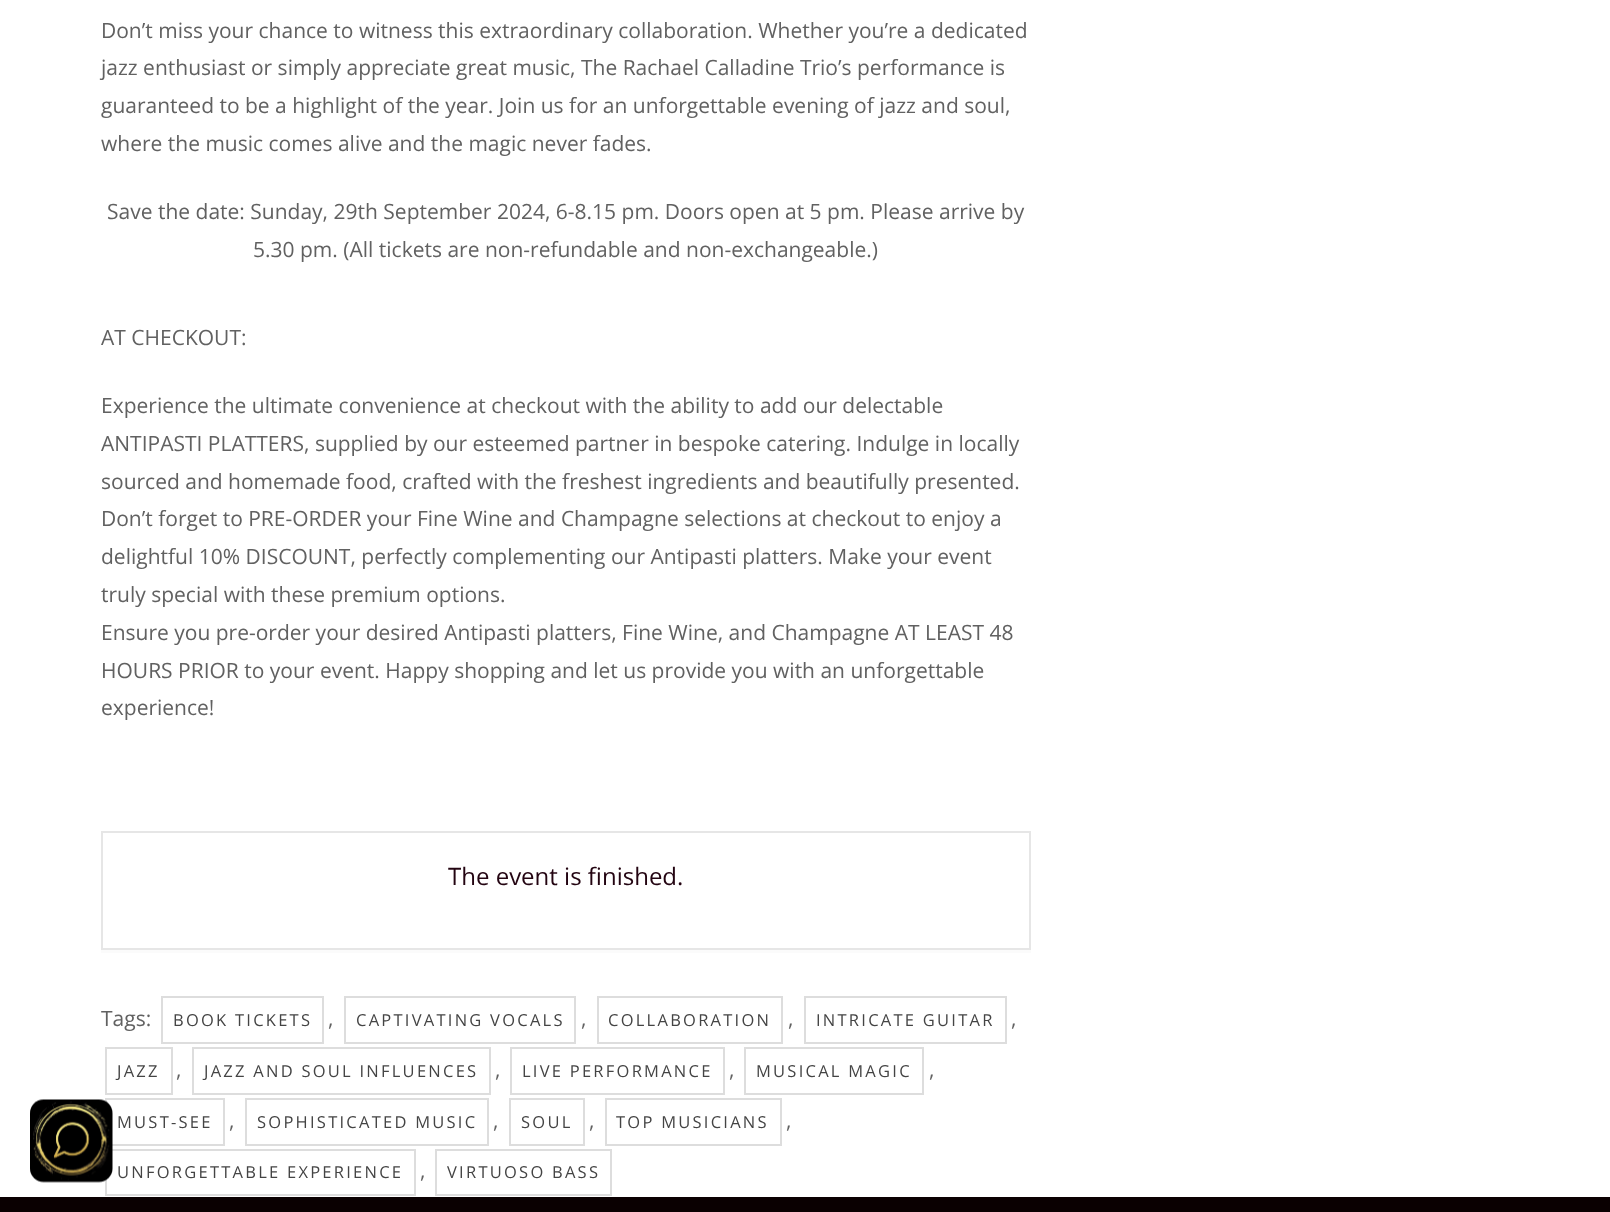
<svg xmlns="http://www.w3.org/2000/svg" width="1610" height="1212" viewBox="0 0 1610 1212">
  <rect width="100%" height="100%" fill="#ffffff"/>
  <rect x="106" y="1099" width="118" height="46" fill="none" stroke="#dddddd" stroke-width="2"/>
  <rect x="106" y="1150" width="309" height="45" fill="none" stroke="#dddddd" stroke-width="2"/>
  <image x="30" y="1099" width="83" height="84" href="img1.png"/>
  <text x="101" y="38" font-family="Open Sans" font-size="21" fill="#616161">Don’t miss your chance to witness this extraordinary collaboration. Whether you’re a dedicated</text>
  <text x="101" y="75" font-family="Open Sans" font-size="21" fill="#616161">jazz enthusiast or simply appreciate great music, The Rachael Calladine Trio’s performance is</text>
  <text x="101" y="113" font-family="Open Sans" font-size="21" fill="#616161">guaranteed to be a highlight of the year. Join us for an unforgettable evening of jazz and soul,</text>
  <text x="101" y="151" font-family="Open Sans" font-size="21" fill="#616161">where the music comes alive and the magic never fades.</text>
  <text x="107" y="219" font-family="Open Sans" font-size="21" fill="#616161">Save the date: Sunday, 29th September 2024, 6-8.15 pm. Doors open at 5 pm. Please arrive by</text>
  <text x="253" y="257" font-family="Open Sans" font-size="21" fill="#616161">5.30 pm. (All tickets are non-refundable and non-exchangeable.)</text>
  <text x="101" y="345" font-family="Open Sans" font-size="21" fill="#616161">AT CHECKOUT:</text>
  <text x="101" y="413" font-family="Open Sans" font-size="21" fill="#616161">Experience the ultimate convenience at checkout with the ability to add our delectable</text>
  <text x="101" y="451" font-family="Open Sans" font-size="21" fill="#616161">ANTIPASTI PLATTERS, supplied by our esteemed partner in bespoke catering. Indulge in locally</text>
  <text x="101" y="489" font-family="Open Sans" font-size="21" fill="#616161">sourced and homemade food, crafted with the freshest ingredients and beautifully presented.</text>
  <text x="101" y="526" font-family="Open Sans" font-size="21" fill="#616161">Don’t forget to PRE-ORDER your Fine Wine and Champagne selections at checkout to enjoy a</text>
  <text x="101" y="564" font-family="Open Sans" font-size="21" fill="#616161">delightful 10% DISCOUNT, perfectly complementing our Antipasti platters. Make your event</text>
  <text x="101" y="602" font-family="Open Sans" font-size="21" fill="#616161">truly special with these premium options.</text>
  <text x="101" y="640" font-family="Open Sans" font-size="21" fill="#616161">Ensure you pre-order your desired Antipasti platters, Fine Wine, and Champagne AT LEAST 48</text>
  <text x="101" y="678" font-family="Open Sans" font-size="21" fill="#616161">HOURS PRIOR to your event. Happy shopping and let us provide you with an unforgettable</text>
  <text x="101" y="715" font-family="Open Sans" font-size="21" fill="#616161">experience!</text>
  <path d="M101 950V953H1031V834H1030V950Z" fill="#fbfbfb"/>
  <rect x="102" y="832" width="928" height="117" fill="none" stroke="#e6e6e6" stroke-width="2"/>
  <text x="448" y="885" font-family="Open Sans" font-size="24" fill="#230411">The event is finished.</text>
  <text x="101" y="1026" font-family="Open Sans" font-size="21" fill="#616161">Tags:</text>
  <rect x="162" y="997" width="161" height="46" fill="none" stroke="#dddddd" stroke-width="2"/>
  <text x="173" y="1026" font-family="Open Sans" font-size="16.5" letter-spacing="2.25" fill="#444444">BOOK TICKETS</text>
  <text x="328" y="1026" font-family="Open Sans" font-size="21" fill="#616161">,</text>
  <rect x="345" y="997" width="230" height="46" fill="none" stroke="#dddddd" stroke-width="2"/>
  <text x="356" y="1026" font-family="Open Sans" font-size="16.5" letter-spacing="2.25" fill="#444444">CAPTIVATING VOCALS</text>
  <text x="581" y="1026" font-family="Open Sans" font-size="21" fill="#616161">,</text>
  <rect x="598" y="997" width="184" height="46" fill="none" stroke="#dddddd" stroke-width="2"/>
  <text x="608" y="1026" font-family="Open Sans" font-size="16.5" letter-spacing="2.25" fill="#444444">COLLABORATION</text>
  <text x="788" y="1026" font-family="Open Sans" font-size="21" fill="#616161">,</text>
  <rect x="805" y="997" width="201" height="46" fill="none" stroke="#dddddd" stroke-width="2"/>
  <text x="816" y="1026" font-family="Open Sans" font-size="16.5" letter-spacing="2.25" fill="#444444">INTRICATE GUITAR</text>
  <text x="1011" y="1026" font-family="Open Sans" font-size="21" fill="#616161">,</text>
  <rect x="106" y="1048" width="66" height="46" fill="none" stroke="#dddddd" stroke-width="2"/>
  <text x="117" y="1077" font-family="Open Sans" font-size="16.5" letter-spacing="2.25" fill="#444444">JAZZ</text>
  <text x="176" y="1077" font-family="Open Sans" font-size="21" fill="#616161">,</text>
  <rect x="193" y="1048" width="297" height="46" fill="none" stroke="#dddddd" stroke-width="2"/>
  <text x="204" y="1077" font-family="Open Sans" font-size="16.5" letter-spacing="2.25" fill="#444444">JAZZ AND SOUL INFLUENCES</text>
  <text x="495" y="1077" font-family="Open Sans" font-size="21" fill="#616161">,</text>
  <rect x="511" y="1048" width="213" height="46" fill="none" stroke="#dddddd" stroke-width="2"/>
  <text x="522" y="1077" font-family="Open Sans" font-size="16.5" letter-spacing="2.25" fill="#444444">LIVE PERFORMANCE</text>
  <text x="729" y="1077" font-family="Open Sans" font-size="21" fill="#616161">,</text>
  <rect x="745" y="1048" width="178" height="46" fill="none" stroke="#dddddd" stroke-width="2"/>
  <text x="756" y="1077" font-family="Open Sans" font-size="16.5" letter-spacing="2.25" fill="#444444">MUSICAL MAGIC</text>
  <text x="929" y="1077" font-family="Open Sans" font-size="21" fill="#616161">,</text>
  <text x="117" y="1128" font-family="Open Sans" font-size="16.5" letter-spacing="2.25" fill="#444444">MUST-SEE</text>
  <text x="229" y="1128" font-family="Open Sans" font-size="21" fill="#616161">,</text>
  <rect x="246" y="1099" width="242" height="46" fill="none" stroke="#dddddd" stroke-width="2"/>
  <text x="257" y="1128" font-family="Open Sans" font-size="16.5" letter-spacing="2.25" fill="#444444">SOPHISTICATED MUSIC</text>
  <text x="493" y="1128" font-family="Open Sans" font-size="21" fill="#616161">,</text>
  <rect x="510" y="1099" width="74" height="46" fill="none" stroke="#dddddd" stroke-width="2"/>
  <text x="521" y="1128" font-family="Open Sans" font-size="16.5" letter-spacing="2.25" fill="#444444">SOUL</text>
  <text x="589" y="1128" font-family="Open Sans" font-size="21" fill="#616161">,</text>
  <rect x="606" y="1099" width="175" height="46" fill="none" stroke="#dddddd" stroke-width="2"/>
  <text x="616" y="1128" font-family="Open Sans" font-size="16.5" letter-spacing="2.25" fill="#444444">TOP MUSICIANS</text>
  <text x="786" y="1128" font-family="Open Sans" font-size="21" fill="#616161">,</text>
  <text x="117" y="1178" font-family="Open Sans" font-size="16.5" letter-spacing="2.25" fill="#444444">UNFORGETTABLE EXPERIENCE</text>
  <text x="420" y="1178" font-family="Open Sans" font-size="21" fill="#616161">,</text>
  <rect x="436" y="1150" width="175" height="45" fill="none" stroke="#dddddd" stroke-width="2"/>
  <text x="447" y="1178" font-family="Open Sans" font-size="16.5" letter-spacing="2.25" fill="#444444">VIRTUOSO BASS</text>
  <rect x="0" y="1197" width="1610" height="15" fill="#0a0001"/>
</svg>
